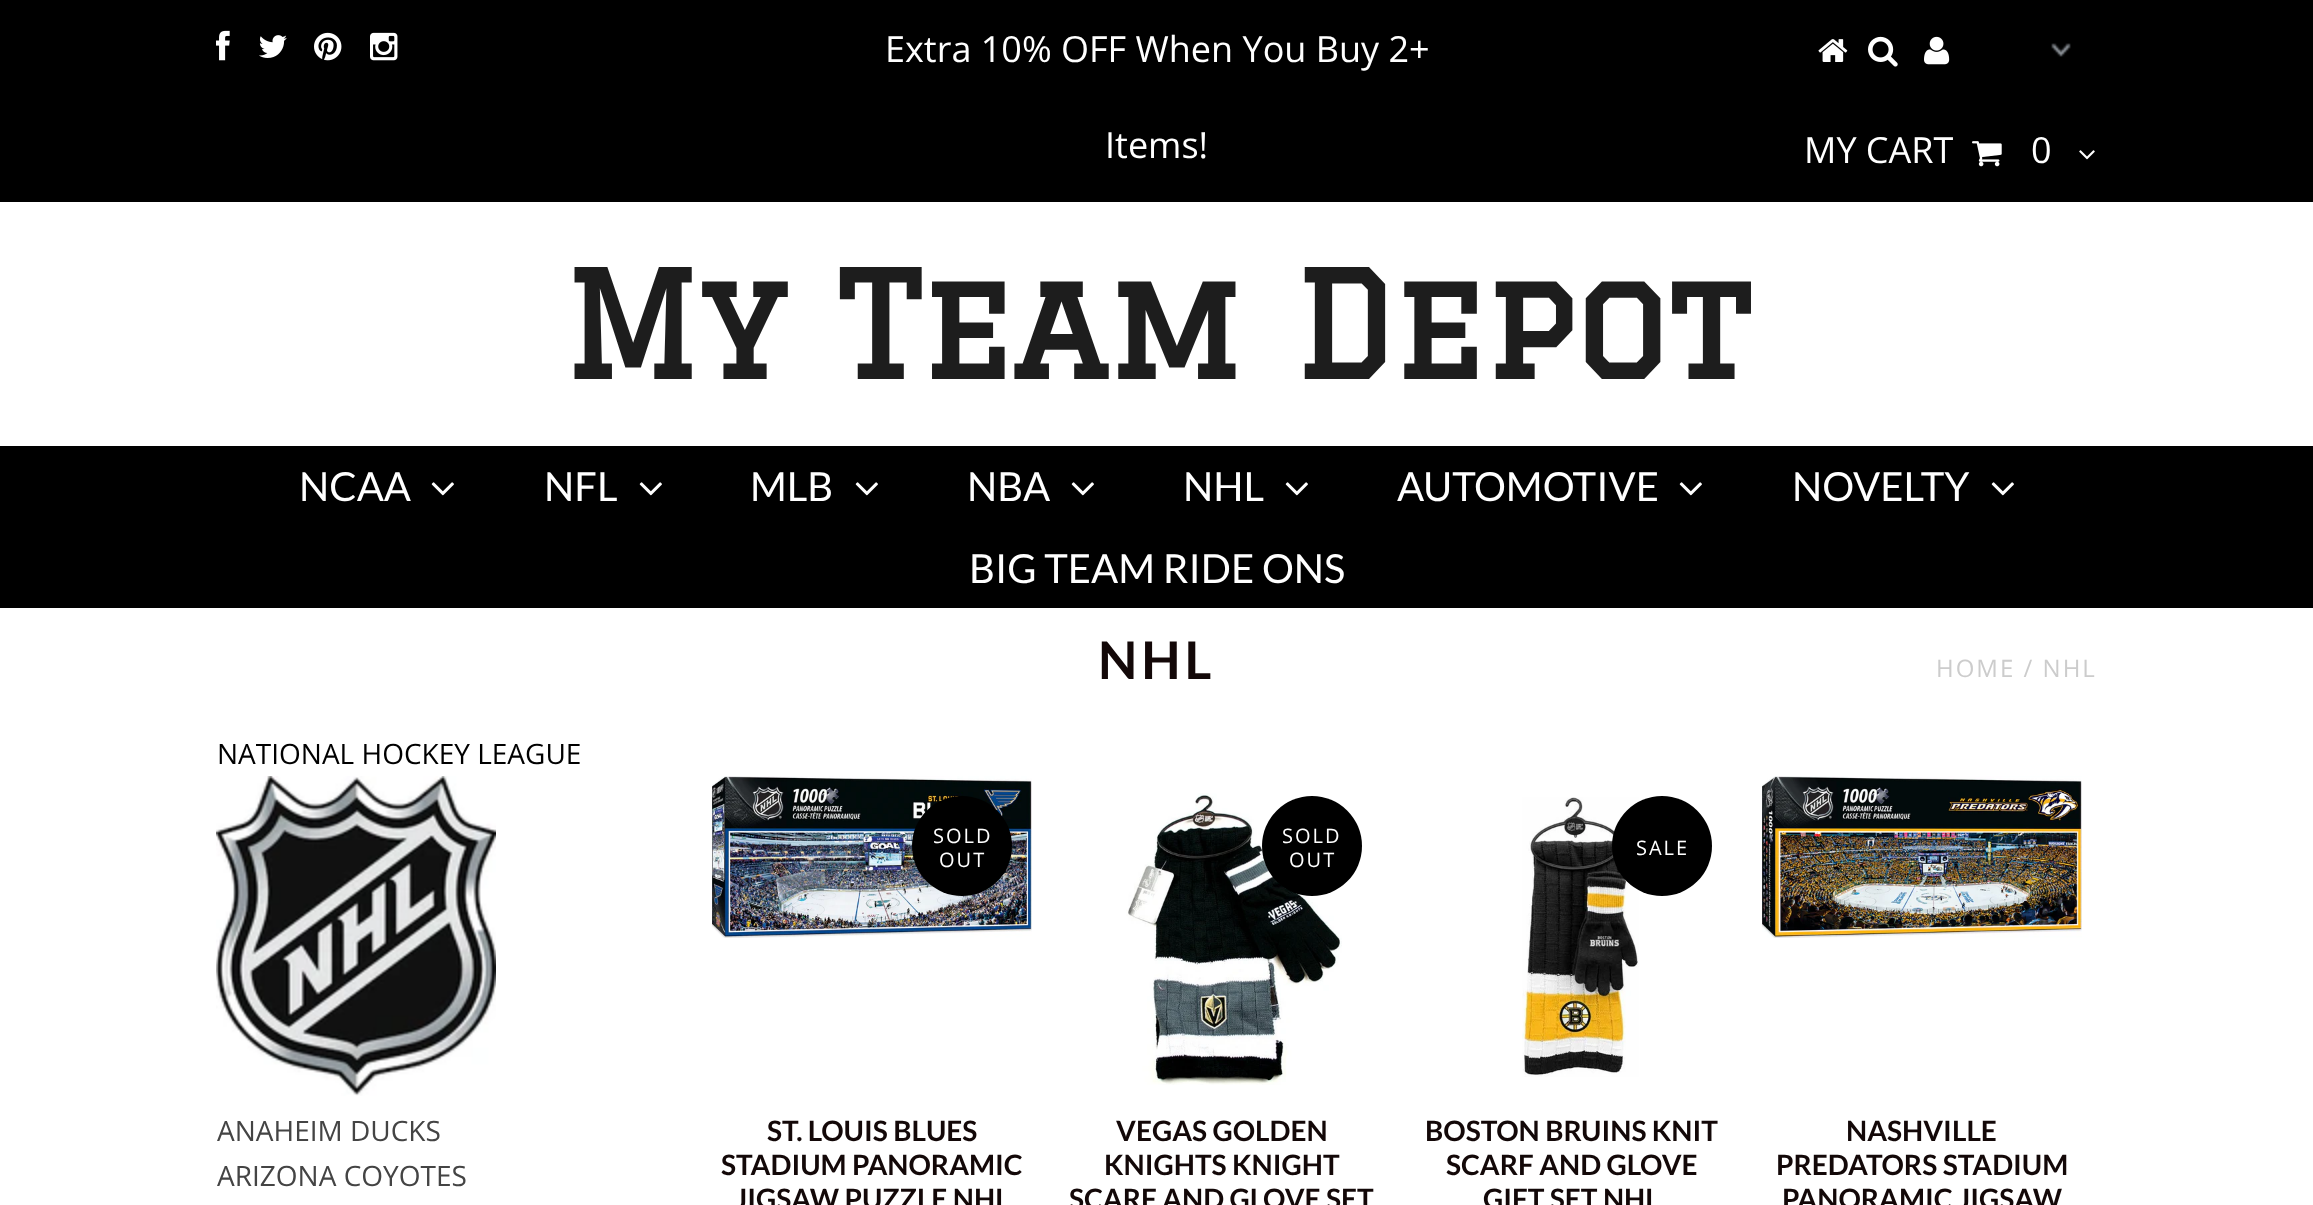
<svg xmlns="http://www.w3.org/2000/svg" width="2313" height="1205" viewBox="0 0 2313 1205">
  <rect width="100%" height="100%" fill="#ffffff"/>
  <rect x="0" y="0" width="2313" height="202" fill="#000000"/>
  <image x="216" y="30" width="14" height="31" href="img1.png"/>
  <image x="259" y="35" width="28" height="23" href="img2.png"/>
  <image x="314" y="32" width="28" height="29" href="img3.png"/>
  <image x="370" y="32" width="28" height="29" href="img4.png"/>
  <text x="885" y="62" font-family="Open Sans" font-size="36" fill="#ffffff">Extra 10% OFF When You Buy 2+</text>
  <text x="1105" y="158" font-family="Open Sans" font-size="36" fill="#ffffff">Items!</text>
  <image x="1818" y="39" width="30" height="23" href="img5.png"/>
  <image x="1868" y="36" width="30" height="31" href="img6.png"/>
  <image x="1924" y="36" width="26" height="29" href="img7.png"/>
  <image x="2051" y="43" width="20" height="14" href="img8.png"/>
  <text x="1804" y="163" font-family="Open Sans" font-size="36" fill="#ffffff">MY CART</text>
  <image x="1972" y="141" width="30" height="26" href="img9.png"/>
  <text x="2031" y="163" font-family="Open Sans" font-size="36" fill="#ffffff">0</text>
  <image x="2079" y="150" width="16" height="10" href="img10.png"/>
  <text x="563" y="379" font-family="Graduate" font-size="144" font-weight="bold" fill="#1d1d1d">My Team Depot</text>
  <rect x="0" y="446" width="2313" height="162" fill="#000000"/>
  <text x="299" y="501" font-family="Lato" font-size="40" fill="#ffffff">NCAA</text>
  <image x="431" y="482" width="23" height="14" href="img11.png"/>
  <text x="544" y="501" font-family="Lato" font-size="40" fill="#ffffff">NFL</text>
  <image x="639" y="482" width="23" height="14" href="img11.png"/>
  <text x="750" y="501" font-family="Lato" font-size="40" fill="#ffffff">MLB</text>
  <image x="855" y="482" width="23" height="14" href="img11.png"/>
  <text x="967" y="501" font-family="Lato" font-size="40" fill="#ffffff">NBA</text>
  <image x="1071" y="482" width="23" height="14" href="img11.png"/>
  <text x="1183" y="501" font-family="Lato" font-size="40" fill="#ffffff">NHL</text>
  <image x="1285" y="482" width="23" height="14" href="img11.png"/>
  <text x="1397" y="501" font-family="Lato" font-size="40" fill="#ffffff">AUTOMOTIVE</text>
  <image x="1679" y="482" width="23" height="14" href="img11.png"/>
  <text x="1792" y="501" font-family="Lato" font-size="40" fill="#ffffff">NOVELTY</text>
  <image x="1991" y="482" width="23" height="14" href="img11.png"/>
  <text x="969" y="583" font-family="Lato" font-size="40" fill="#ffffff">BIG TEAM RIDE ONS</text>
  <text x="1098" y="679" font-family="Lato" font-size="52" font-weight="bold" letter-spacing="4" fill="#130808">NHL</text>
  <text x="1936" y="677" font-family="Open Sans" font-size="24" letter-spacing="2" fill="#cccccc">HOME / NHL</text>
  <text x="217" y="764" font-family="Open Sans" font-size="28" fill="#000000">NATIONAL HOCKEY LEAGUE</text>
  <image x="216" y="776" width="280" height="320" href="img12.png"/>
  <text x="217" y="1141" font-family="Open Sans" font-size="28" fill="#444444">ANAHEIM DUCKS</text>
  <text x="217" y="1186" font-family="Open Sans" font-size="28" fill="#444444">ARIZONA COYOTES</text>
  <image x="712" y="776" width="320" height="162" href="img13.png"/>
  <circle cx="962" cy="846" r="50" fill="#000000"/>
  <text x="933" y="843" font-family="Open Sans" font-size="20" letter-spacing="2" fill="#ffffff">SOLD</text>
  <text x="939" y="867" font-family="Open Sans" font-size="20" letter-spacing="2" fill="#ffffff">OUT</text>
  <text x="767" y="1141" font-family="Lato" font-size="28" font-weight="bold" fill="#130808">ST. LOUIS BLUES</text>
  <text x="721" y="1175" font-family="Lato" font-size="28" font-weight="bold" fill="#130808">STADIUM PANORAMIC</text>
  <text x="735" y="1209" font-family="Lato" font-size="28" font-weight="bold" fill="#130808">JIGSAW PUZZLE NHL</text>
  <image x="1126" y="793" width="216" height="292" href="img14.png"/>
  <circle cx="1312" cy="846" r="50" fill="#000000"/>
  <text x="1282" y="843" font-family="Open Sans" font-size="20" letter-spacing="2" fill="#ffffff">SOLD</text>
  <text x="1289" y="867" font-family="Open Sans" font-size="20" letter-spacing="2" fill="#ffffff">OUT</text>
  <text x="1116" y="1141" font-family="Lato" font-size="28" font-weight="bold" fill="#130808">VEGAS GOLDEN</text>
  <text x="1104" y="1175" font-family="Lato" font-size="28" font-weight="bold" fill="#130808">KNIGHTS KNIGHT</text>
  <text x="1069" y="1209" font-family="Lato" font-size="28" font-weight="bold" fill="#130808">SCARF AND GLOVE SET</text>
  <image x="1522" y="797" width="117" height="280" href="img15.png"/>
  <circle cx="1662" cy="846" r="50" fill="#000000"/>
  <text x="1636" y="855" font-family="Open Sans" font-size="20" letter-spacing="2" fill="#ffffff">SALE</text>
  <text x="1425" y="1141" font-family="Lato" font-size="28" font-weight="bold" fill="#130808">BOSTON BRUINS KNIT</text>
  <text x="1446" y="1175" font-family="Lato" font-size="28" font-weight="bold" fill="#130808">SCARF AND GLOVE</text>
  <text x="1483" y="1209" font-family="Lato" font-size="28" font-weight="bold" fill="#130808">GIFT SET NHL</text>
  <image x="1762" y="776" width="320" height="162" href="img16.png"/>
  <text x="1846" y="1141" font-family="Lato" font-size="28" font-weight="bold" fill="#130808">NASHVILLE</text>
  <text x="1776" y="1175" font-family="Lato" font-size="28" font-weight="bold" fill="#130808">PREDATORS STADIUM</text>
  <text x="1782" y="1209" font-family="Lato" font-size="28" font-weight="bold" fill="#130808">PANORAMIC JIGSAW</text>
</svg>
